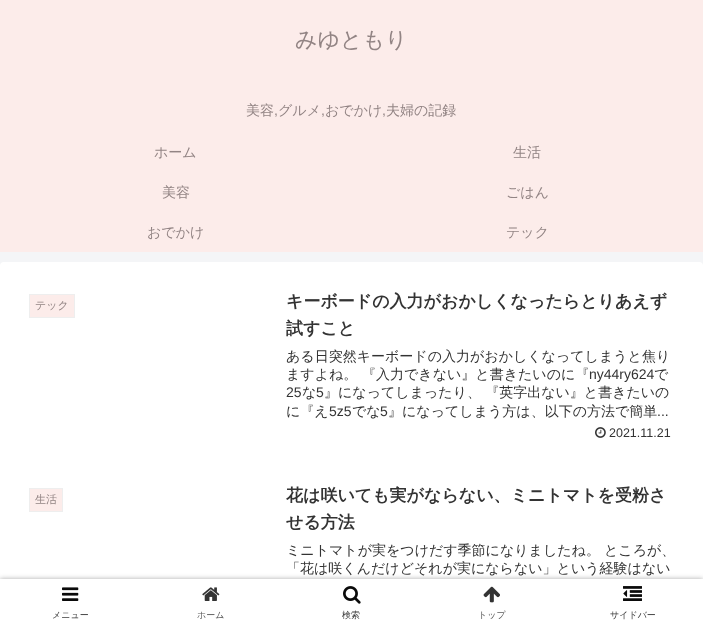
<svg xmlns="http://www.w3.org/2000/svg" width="703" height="629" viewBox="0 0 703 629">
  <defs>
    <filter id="blur1" x="-50%" y="-200%" width="200%" height="500%"><feGaussianBlur stdDeviation="2.5"/></filter>
  </defs>
  <rect width="100%" height="100%" fill="#f4f5f7"/>
  <rect x="0" y="0" width="703" height="252" fill="#fcecea"/>
  <text x="295" y="47" font-family="WenQuanYi Zen Hei" font-size="22" font-weight="500" fill="#928484">みゆともり</text>
  <text x="246" y="115" font-family="WenQuanYi Zen Hei" font-size="14" font-weight="500" fill="#928484">美容</text>
  <text x="274" y="115" font-family="Liberation Sans" font-size="14" fill="#928484">,</text>
  <text x="278" y="115" font-family="WenQuanYi Zen Hei" font-size="14" font-weight="500" fill="#928484">グルメ</text>
  <text x="321" y="115" font-family="Liberation Sans" font-size="14" fill="#928484">,</text>
  <text x="325" y="115" font-family="WenQuanYi Zen Hei" font-size="14" font-weight="500" fill="#928484">おでかけ</text>
  <text x="382" y="115" font-family="Liberation Sans" font-size="14" fill="#928484">,</text>
  <text x="386" y="115" font-family="WenQuanYi Zen Hei" font-size="14" font-weight="500" fill="#928484">夫婦の記録</text>
  <text x="154" y="157" font-family="WenQuanYi Zen Hei" font-size="14" font-weight="500" fill="#928484">ホーム</text>
  <text x="513" y="157" font-family="WenQuanYi Zen Hei" font-size="14" font-weight="500" fill="#928484">生活</text>
  <text x="162" y="197" font-family="WenQuanYi Zen Hei" font-size="14" font-weight="500" fill="#928484">美容</text>
  <text x="506" y="197" font-family="WenQuanYi Zen Hei" font-size="14" font-weight="500" fill="#928484">ごはん</text>
  <text x="147" y="237" font-family="WenQuanYi Zen Hei" font-size="14" font-weight="500" fill="#928484">おでかけ</text>
  <text x="506" y="237" font-family="WenQuanYi Zen Hei" font-size="14" font-weight="500" fill="#928484">テック</text>
  <rect x="0" y="262" width="703" height="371" rx="4" fill="#ffffff"/>
  <rect x="29.5" y="294.5" width="45" height="23" fill="#fcecea" stroke="#eeeeee"/>
  <text x="35" y="309" font-family="WenQuanYi Zen Hei" font-size="11" font-weight="500" fill="#928484">テック</text>
  <text x="286" y="307" font-family="WenQuanYi Zen Hei" font-size="17" font-weight="bold" fill="#333333">キーボードの入力がおかしくなったらとりあえず</text>
  <text x="286" y="334" font-family="WenQuanYi Zen Hei" font-size="17" font-weight="bold" fill="#333333">試すこと</text>
  <text x="286" y="361" font-family="WenQuanYi Zen Hei" font-size="14" font-weight="500" fill="#333333">ある日突然キーボードの入力がおかしくなってしまうと焦り</text>
  <text x="286" y="379" font-family="WenQuanYi Zen Hei" font-size="14" font-weight="500" fill="#333333">ますよね。</text>
  <text x="362" y="379" font-family="WenQuanYi Zen Hei" font-size="14" font-weight="500" fill="#333333">『入力できない』と書きたいのに『</text>
  <text x="589" y="379" font-family="Liberation Sans" font-size="14" fill="#333333">ny44ry624</text>
  <text x="654" y="379" font-family="WenQuanYi Zen Hei" font-size="14" font-weight="500" fill="#333333">で</text>
  <text x="286" y="397" font-family="Liberation Sans" font-size="14" fill="#333333">25</text>
  <text x="302" y="397" font-family="WenQuanYi Zen Hei" font-size="14" font-weight="500" fill="#333333">な</text>
  <text x="316" y="397" font-family="Liberation Sans" font-size="14" fill="#333333">5</text>
  <text x="324" y="397" font-family="WenQuanYi Zen Hei" font-size="14" font-weight="500" fill="#333333">』になってしまったり、 『英字出ない』と書きたいの</text>
  <text x="286" y="416" font-family="WenQuanYi Zen Hei" font-size="14" font-weight="500" fill="#333333">に『え</text>
  <text x="329" y="416" font-family="Liberation Sans" font-size="14" fill="#333333">5z5</text>
  <text x="352" y="416" font-family="WenQuanYi Zen Hei" font-size="14" font-weight="500" fill="#333333">でな</text>
  <text x="380" y="416" font-family="Liberation Sans" font-size="14" fill="#333333">5</text>
  <text x="388" y="416" font-family="WenQuanYi Zen Hei" font-size="14" font-weight="500" fill="#333333">』になってしまう方は、以下の方法で簡単</text>
  <text x="657" y="416" font-family="Liberation Sans" font-size="14" fill="#333333">...</text>
  <image x="595" y="427" width="11" height="11" href="img1.png"/>
  <text x="609" y="437" font-family="Liberation Sans" font-size="12.5" fill="#333333">2021.11.21</text>
  <rect x="29.5" y="488.5" width="33" height="23" fill="#fcecea" stroke="#eeeeee"/>
  <text x="35" y="503" font-family="WenQuanYi Zen Hei" font-size="11" font-weight="500" fill="#928484">生活</text>
  <text x="286" y="501" font-family="WenQuanYi Zen Hei" font-size="17" font-weight="bold" fill="#333333">花は咲いても実がならない、ミニトマトを受粉さ</text>
  <text x="286" y="528" font-family="WenQuanYi Zen Hei" font-size="17" font-weight="bold" fill="#333333">せる方法</text>
  <text x="286" y="555" font-family="WenQuanYi Zen Hei" font-size="14" font-weight="500" fill="#333333">ミニトマトが実をつけだす季節になりましたね。</text>
  <text x="604" y="555" font-family="WenQuanYi Zen Hei" font-size="14" font-weight="500" fill="#333333">ところが、</text>
  <text x="286" y="573" font-family="WenQuanYi Zen Hei" font-size="14" font-weight="500" fill="#333333">「花は咲くんだけどそれが実にならない」という経験はない</text>
  <rect x="0" y="579" width="703" height="50" fill="#a9a9a9" filter="url(#blur1)"/>
  <rect x="0" y="579" width="703" height="50" fill="#ffffff"/>
  <image x="62" y="587" width="17" height="14" href="img2.png"/>
  <text x="52" y="618" font-family="WenQuanYi Zen Hei" font-size="9" font-weight="500" fill="#3b3b3b">メニュー</text>
  <image x="202" y="587" width="18" height="14" href="img3.png"/>
  <text x="197" y="618" font-family="WenQuanYi Zen Hei" font-size="9" font-weight="500" fill="#5c5c5c">ホーム</text>
  <image x="343" y="586" width="18" height="18" href="img4.png"/>
  <text x="342" y="618" font-family="WenQuanYi Zen Hei" font-size="9" font-weight="500" fill="#3b3b3b">検索</text>
  <image x="483" y="586" width="17" height="17" href="img5.png"/>
  <text x="478" y="618" font-family="WenQuanYi Zen Hei" font-size="9" font-weight="500" fill="#5c5c5c">トップ</text>
  <image x="623" y="586" width="19" height="15" href="img6.png"/>
  <text x="610" y="618" font-family="WenQuanYi Zen Hei" font-size="9" font-weight="500" fill="#3b3b3b">サイドバー</text>
</svg>
